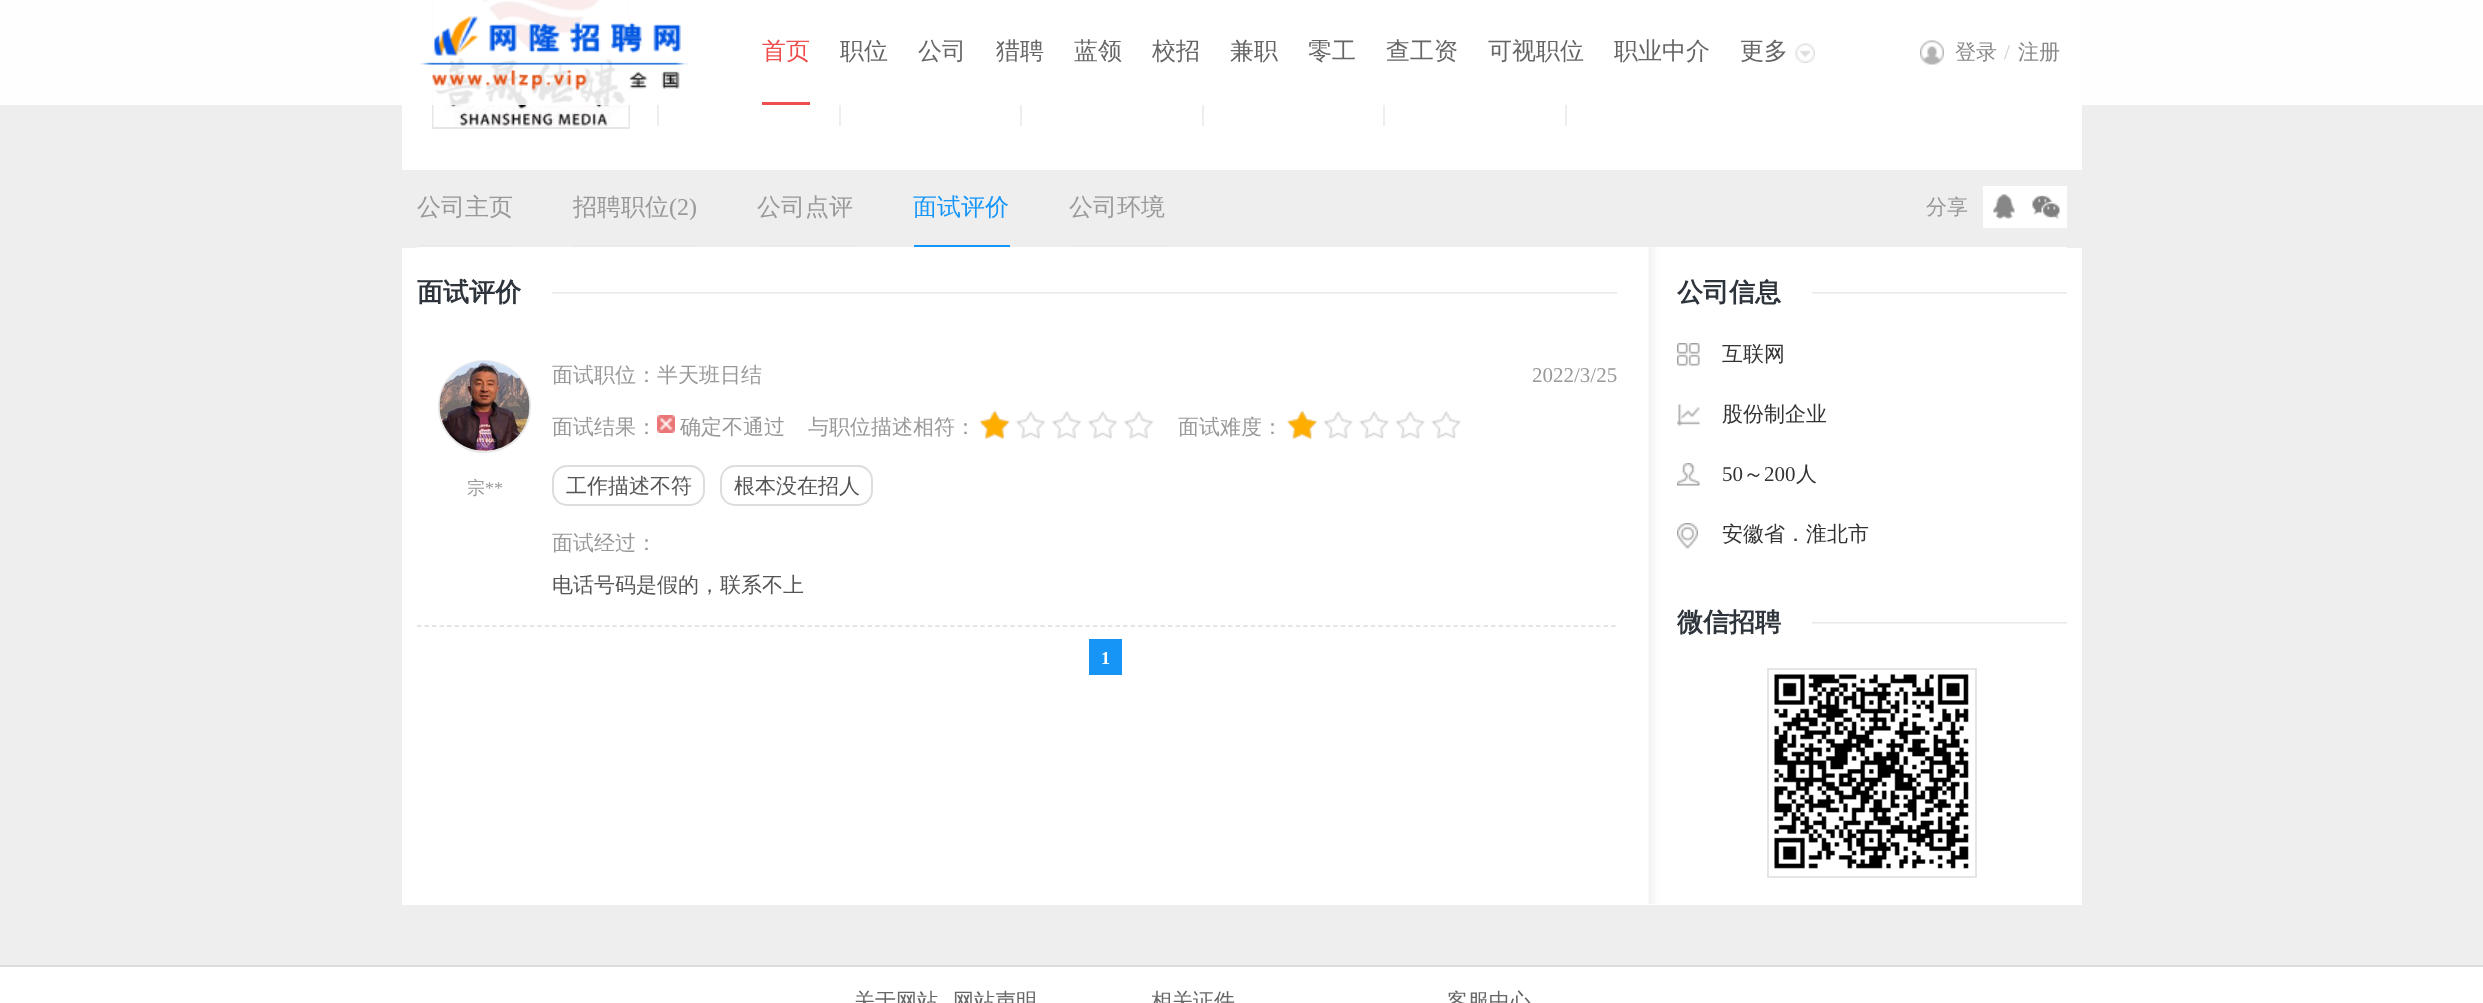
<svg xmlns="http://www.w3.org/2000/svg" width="2483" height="1003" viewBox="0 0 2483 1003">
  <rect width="100%" height="100%" fill="#eeeeee"/>
  <rect x="402" y="0" width="1680" height="170" fill="#ffffff"/>
  <rect x="433" y="-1" width="196" height="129" fill="none" stroke="#e6e6e6" stroke-width="2"/>
  <image x="433" y="0" width="196" height="127" href="img1.png"/>
  <rect x="657" y="51" width="2" height="75" fill="#eeeeee"/>
  <rect x="839" y="51" width="2" height="75" fill="#eeeeee"/>
  <rect x="1020" y="51" width="2" height="75" fill="#eeeeee"/>
  <rect x="1202" y="51" width="2" height="75" fill="#eeeeee"/>
  <rect x="1383" y="51" width="2" height="75" fill="#eeeeee"/>
  <rect x="1565" y="51" width="2" height="75" fill="#eeeeee"/>
  <rect x="0" y="0" width="2483" height="105" fill="#ffffff" fill-opacity="0.9"/>
  <image x="420" y="16" width="268" height="75" href="img2.png"/>
  <rect x="762" y="102" width="48" height="3" fill="#ee4e4e"/>
  <text x="762" y="59" font-family="WenQuanYi Zen Hei" font-size="24" font-weight="500" fill="#ee4e4e">首页</text>
  <text x="840" y="59" font-family="WenQuanYi Zen Hei" font-size="24" font-weight="500" fill="#666666">职位</text>
  <text x="918" y="59" font-family="WenQuanYi Zen Hei" font-size="24" font-weight="500" fill="#666666">公司</text>
  <text x="996" y="59" font-family="WenQuanYi Zen Hei" font-size="24" font-weight="500" fill="#666666">猎聘</text>
  <text x="1074" y="59" font-family="WenQuanYi Zen Hei" font-size="24" font-weight="500" fill="#666666">蓝领</text>
  <text x="1152" y="59" font-family="WenQuanYi Zen Hei" font-size="24" font-weight="500" fill="#666666">校招</text>
  <text x="1230" y="59" font-family="WenQuanYi Zen Hei" font-size="24" font-weight="500" fill="#666666">兼职</text>
  <text x="1308" y="59" font-family="WenQuanYi Zen Hei" font-size="24" font-weight="500" fill="#666666">零工</text>
  <text x="1386" y="59" font-family="WenQuanYi Zen Hei" font-size="24" font-weight="500" fill="#666666">查工资</text>
  <text x="1488" y="59" font-family="WenQuanYi Zen Hei" font-size="24" font-weight="500" fill="#666666">可视职位</text>
  <text x="1614" y="59" font-family="WenQuanYi Zen Hei" font-size="24" font-weight="500" fill="#666666">职业中介</text>
  <image x="1795" y="43" width="20" height="20" href="img3.png"/>
  <text x="1740" y="59" font-family="WenQuanYi Zen Hei" font-size="24" font-weight="500" fill="#666666">更多</text>
  <image x="1920" y="40" width="24" height="25" href="img4.png"/>
  <text x="1955" y="59" font-family="WenQuanYi Zen Hei" font-size="21" font-weight="500" fill="#888888">登录</text>
  <text x="2004" y="59" font-family="Liberation Serif" font-size="21" fill="#cccccc">/</text>
  <text x="2018" y="59" font-family="WenQuanYi Zen Hei" font-size="21" font-weight="500" fill="#888888">注册</text>
  <rect x="417" y="245" width="96" height="2" fill="#e9eaec"/>
  <text x="417" y="215" font-family="WenQuanYi Zen Hei" font-size="24" font-weight="500" fill="#999999">公司主页</text>
  <rect x="573" y="245" width="125" height="2" fill="#e9eaec"/>
  <text x="573" y="215" font-family="WenQuanYi Zen Hei" font-size="24" font-weight="500" fill="#999999">招聘职位</text>
  <text x="669" y="215" font-family="Liberation Serif" font-size="24" fill="#999999">(2)</text>
  <rect x="758" y="245" width="96" height="2" fill="#e9eaec"/>
  <text x="757" y="215" font-family="WenQuanYi Zen Hei" font-size="24" font-weight="500" fill="#999999">公司点评</text>
  <rect x="914" y="245" width="96" height="2" fill="#1696f9"/>
  <text x="913" y="215" font-family="WenQuanYi Zen Hei" font-size="24" font-weight="500" fill="#1696f9">面试评价</text>
  <rect x="1070" y="245" width="96" height="2" fill="#e9eaec"/>
  <text x="1069" y="215" font-family="WenQuanYi Zen Hei" font-size="24" font-weight="500" fill="#999999">公司环境</text>
  <rect x="1983" y="186" width="84" height="42" fill="#ffffff"/>
  <image x="1993" y="194" width="22" height="25" href="img5.png"/>
  <text x="1926" y="214" font-family="WenQuanYi Zen Hei" font-size="21" font-weight="500" fill="#999999">分享</text>
  <image x="2032" y="195" width="28" height="24" href="img6.png"/>
  <rect x="402" y="248" width="1680" height="657" fill="#ffffff"/>
  <image x="417" y="247" width="1650" height="657" href="img7.png"/>
  <image x="552" y="292" width="1065" height="2" href="img8.png"/>
  <text x="417" y="301" font-family="WenQuanYi Zen Hei" font-size="26" font-weight="bold" fill="#2e343b">面试评价</text>
  <path d="M417 626H1617" fill="none" stroke="#dddddd" stroke-width="1.5" stroke-dasharray="4.5 3.01"/>
  <circle cx="484.5" cy="406.5" r="45.5" fill="none" stroke="#e8e8e8" stroke-width="2"/>
  <image x="439" y="361" width="91" height="90" href="img9.png"/>
  <text x="467" y="494" font-family="WenQuanYi Zen Hei" font-size="18" font-weight="500" fill="#999999">宗</text>
  <text x="485" y="494" font-family="Liberation Serif" font-size="18" fill="#999999">**</text>
  <text x="552" y="382" font-family="WenQuanYi Zen Hei" font-size="21" font-weight="500" fill="#999999">面试职位：半天班日结</text>
  <text x="1532" y="382" font-family="Liberation Serif" font-size="21" fill="#999999">2022/3/25</text>
  <text x="552" y="434" font-family="WenQuanYi Zen Hei" font-size="21" font-weight="500" fill="#999999">面试结果：</text>
  <image x="657" y="415" width="18" height="18" href="img10.png"/>
  <text x="680" y="434" font-family="WenQuanYi Zen Hei" font-size="21" font-weight="500" fill="#999999">确定不通过</text>
  <text x="808" y="434" font-family="WenQuanYi Zen Hei" font-size="21" font-weight="500" fill="#999999">与职位描述相符：</text>
  <image x="980" y="410" width="174" height="29" href="img11.png"/>
  <image x="979" y="410" width="31" height="29" href="img12.png"/>
  <text x="1178" y="434" font-family="WenQuanYi Zen Hei" font-size="21" font-weight="500" fill="#999999">面试难度：</text>
  <image x="1287" y="410" width="174" height="29" href="img13.png"/>
  <image x="1286" y="410" width="32" height="29" href="img14.png"/>
  <rect x="553" y="466" width="151" height="39" rx="14" fill="none" stroke="#dddddd" stroke-width="2"/>
  <text x="566" y="493" font-family="WenQuanYi Zen Hei" font-size="21" font-weight="500" fill="#555555">工作描述不符</text>
  <rect x="721" y="466" width="151" height="39" rx="14" fill="none" stroke="#dddddd" stroke-width="2"/>
  <text x="734" y="493" font-family="WenQuanYi Zen Hei" font-size="21" font-weight="500" fill="#555555">根本没在招人</text>
  <text x="552" y="550" font-family="WenQuanYi Zen Hei" font-size="21" font-weight="500" fill="#999999">面试经过：</text>
  <text x="552" y="592" font-family="WenQuanYi Zen Hei" font-size="21" font-weight="500" fill="#555555">电话号码是假的，联系不上</text>
  <rect x="1089" y="639" width="33" height="36" fill="#1695f6"/>
  <text x="1101" y="664" font-family="Liberation Serif" font-size="18" font-weight="bold" fill="#ffffff">1</text>
  <image x="1812" y="292" width="255" height="2" href="img15.png"/>
  <text x="1677" y="301" font-family="WenQuanYi Zen Hei" font-size="26" font-weight="bold" fill="#2e343b">公司信息</text>
  <image x="1677" y="343" width="23" height="23" href="img16.png"/>
  <text x="1722" y="361" font-family="WenQuanYi Zen Hei" font-size="21" font-weight="500" fill="#333333">互联网</text>
  <image x="1677" y="404" width="23" height="22" href="img17.png"/>
  <text x="1722" y="421" font-family="WenQuanYi Zen Hei" font-size="21" font-weight="500" fill="#333333">股份制企业</text>
  <image x="1677" y="463" width="23" height="23" href="img18.png"/>
  <text x="1722" y="481" font-family="Liberation Serif" font-size="21" fill="#333333">50</text>
  <text x="1743" y="481" font-family="WenQuanYi Zen Hei" font-size="21" font-weight="500" fill="#333333">～</text>
  <text x="1764" y="481" font-family="Liberation Serif" font-size="21" fill="#333333">200</text>
  <text x="1796" y="481" font-family="WenQuanYi Zen Hei" font-size="21" font-weight="500" fill="#333333">人</text>
  <image x="1677" y="523" width="21" height="26" href="img19.png"/>
  <text x="1722" y="541" font-family="WenQuanYi Zen Hei" font-size="21" font-weight="500" fill="#333333">安徽省．淮北市</text>
  <image x="1812" y="622" width="255" height="2" href="img15.png"/>
  <text x="1677" y="631" font-family="WenQuanYi Zen Hei" font-size="26" font-weight="bold" fill="#2e343b">微信招聘</text>
  <rect x="1768" y="669" width="208" height="208" fill="none" stroke="#e5e5e5" stroke-width="2"/>
  <image x="1774" y="674" width="195" height="195" href="img20.png"/>
  <rect x="0" y="967" width="2483" height="36" fill="#ffffff"/>
  <rect x="0" y="965" width="2483" height="2" fill="#dddddd"/>
  <text x="854" y="1008" font-family="WenQuanYi Zen Hei" font-size="21" font-weight="500" fill="#666666">关于网站</text>
  <text x="953" y="1008" font-family="WenQuanYi Zen Hei" font-size="21" font-weight="500" fill="#666666">网站声明</text>
  <text x="1151" y="1008" font-family="WenQuanYi Zen Hei" font-size="21" font-weight="500" fill="#666666">相关证件</text>
  <text x="1447" y="1008" font-family="WenQuanYi Zen Hei" font-size="21" font-weight="500" fill="#666666">客服中心</text>
</svg>
